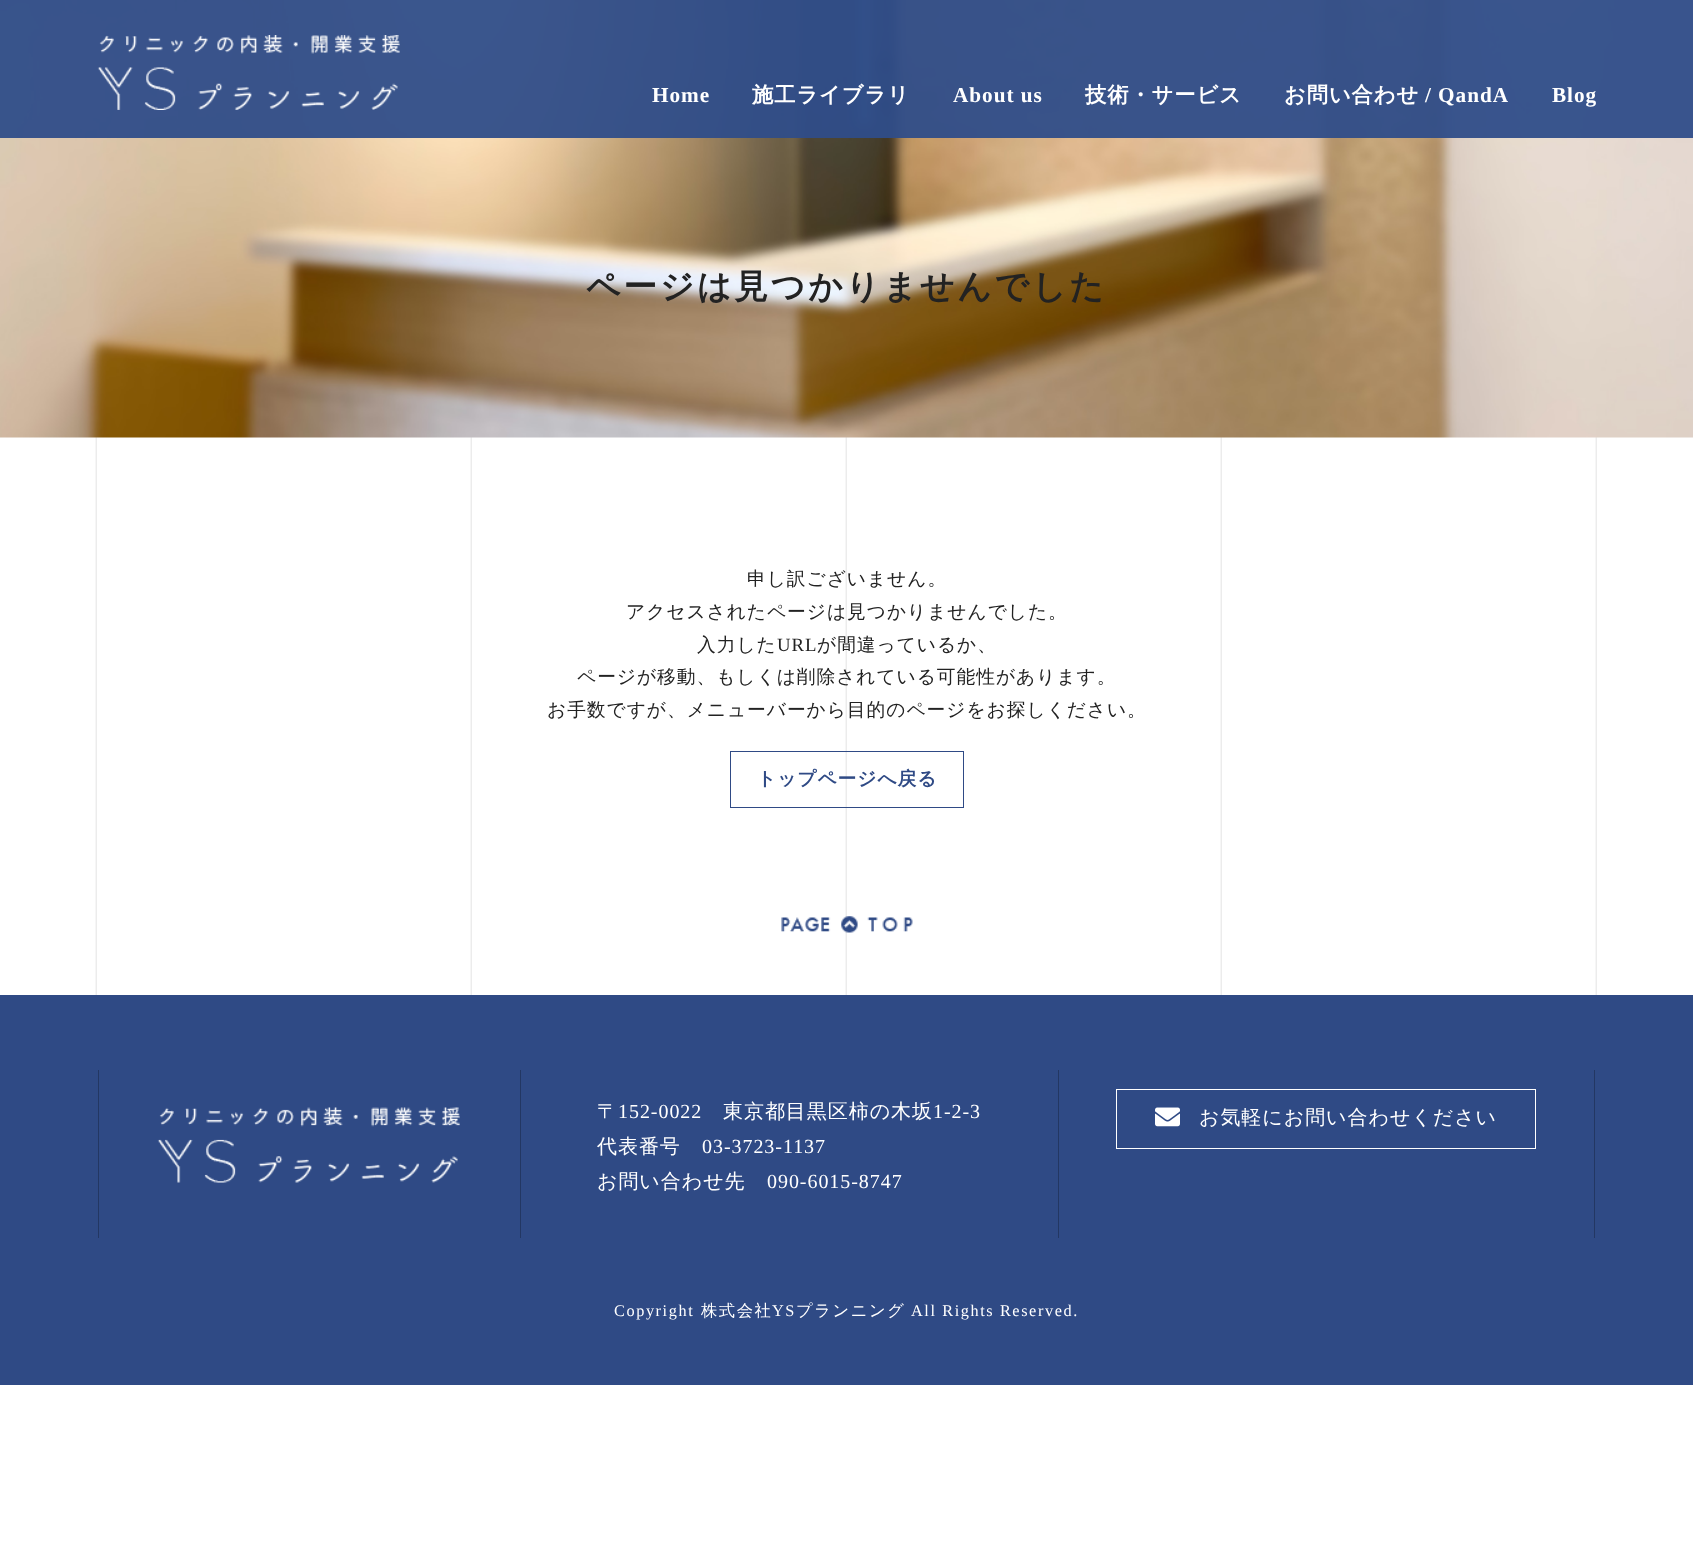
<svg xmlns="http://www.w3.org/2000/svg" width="1693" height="1567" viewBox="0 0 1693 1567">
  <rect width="100%" height="100%" fill="#ffffff"/>
  <image x="95" y="437" width="1502" height="558" href="img2.png"/>
  <image x="0" y="0" width="1693" height="438" href="img3.png"/>
  <rect x="0" y="0" width="1693" height="138" fill="#2f4d89" fill-opacity="0.95"/>
  <image x="97" y="35" width="303" height="75" href="img1.png"/>
  <text x="652" y="102" font-family="Liberation Serif" font-size="21.25" font-weight="bold" letter-spacing="0.95" fill="#ffffff">Home</text>
  <text x="752" y="102" font-family="WenQuanYi Zen Hei" font-size="21.25" font-weight="bold" letter-spacing="0.95" fill="#ffffff">施工ライブラリ</text>
  <text x="953" y="102" font-family="Liberation Serif" font-size="21.25" font-weight="bold" letter-spacing="0.95" fill="#ffffff">About us</text>
  <text x="1085" y="102" font-family="WenQuanYi Zen Hei" font-size="21.25" font-weight="bold" letter-spacing="0.95" fill="#ffffff">技術・サービス</text>
  <text x="1284" y="102" font-family="WenQuanYi Zen Hei" font-size="21.25" font-weight="bold" letter-spacing="0.95" fill="#ffffff">お問い合わせ</text>
  <text x="1425" y="102" font-family="Liberation Serif" font-size="21.25" font-weight="bold" letter-spacing="0.95" fill="#ffffff">/ QandA</text>
  <text x="1552" y="102" font-family="Liberation Serif" font-size="21.25" font-weight="bold" letter-spacing="0.95" fill="#ffffff">Blog</text>
  <text x="586" y="298" font-family="WenQuanYi Zen Hei" font-size="33.75" font-weight="bold" letter-spacing="2.75" fill="#222222">ページは見つかりませんでした</text>
  <text x="747" y="585" font-family="WenQuanYi Zen Hei" font-size="18.75" font-weight="500" letter-spacing="0.95" fill="#222222">申し訳ございません。</text>
  <text x="626" y="618" font-family="WenQuanYi Zen Hei" font-size="18.75" font-weight="500" letter-spacing="0.95" fill="#222222">アクセスされたページは見つかりませんでした。</text>
  <text x="697" y="651" font-family="WenQuanYi Zen Hei" font-size="18.75" font-weight="500" letter-spacing="0.95" fill="#222222">入力した</text>
  <text x="777" y="651" font-family="Liberation Serif" font-size="18.75" letter-spacing="0.95" fill="#222222">URL</text>
  <text x="817" y="651" font-family="WenQuanYi Zen Hei" font-size="18.75" font-weight="500" letter-spacing="0.95" fill="#222222">が間違っているか、</text>
  <text x="577" y="683" font-family="WenQuanYi Zen Hei" font-size="18.75" font-weight="500" letter-spacing="0.95" fill="#222222">ページが移動、もしくは削除されている可能性があります。</text>
  <text x="547" y="716" font-family="WenQuanYi Zen Hei" font-size="18.75" font-weight="500" letter-spacing="0.95" fill="#222222">お手数ですが、メニューバーから目的のページをお探しください。</text>
  <rect x="730.5" y="751.5" width="233" height="56" fill="none" stroke="#2f4a85"/>
  <text x="757" y="785" font-family="WenQuanYi Zen Hei" font-size="18.75" font-weight="bold" letter-spacing="0.95" fill="#2f4a85">トップページへ戻る</text>
  <rect x="0" y="995" width="1693" height="390" fill="#2f4a85"/>
  <image x="781" y="916" width="132" height="17" href="img4.png"/>
  <rect x="520" y="1070" width="1" height="168" fill="#233763"/>
  <rect x="98" y="1070" width="1" height="168" fill="#233763"/>
  <image x="157" y="1107" width="303" height="76" href="img5.png"/>
  <rect x="1058" y="1070" width="1" height="168" fill="#233763"/>
  <text x="597" y="1118" font-family="WenQuanYi Zen Hei" font-size="20" font-weight="500" letter-spacing="0.95" fill="#ffffff">〒</text>
  <text x="618" y="1118" font-family="Liberation Serif" font-size="20" letter-spacing="0.95" fill="#ffffff">152-0022</text>
  <text x="723" y="1118" font-family="WenQuanYi Zen Hei" font-size="20" font-weight="500" letter-spacing="0.95" fill="#ffffff">東京都目黒区柿の木坂</text>
  <text x="933" y="1118" font-family="Liberation Serif" font-size="20" letter-spacing="0.95" fill="#ffffff">1-2-3</text>
  <text x="597" y="1153" font-family="WenQuanYi Zen Hei" font-size="20" font-weight="500" letter-spacing="0.95" fill="#ffffff">代表番号</text>
  <text x="702" y="1153" font-family="Liberation Serif" font-size="20" letter-spacing="0.95" fill="#ffffff">03-3723-1137</text>
  <text x="597" y="1188" font-family="WenQuanYi Zen Hei" font-size="20" font-weight="500" letter-spacing="0.95" fill="#ffffff">お問い合わせ先</text>
  <text x="767" y="1188" font-family="Liberation Serif" font-size="20" letter-spacing="0.95" fill="#ffffff">090-6015-8747</text>
  <rect x="1594" y="1070" width="1" height="168" fill="#233763"/>
  <rect x="1116.5" y="1089.5" width="419" height="59" fill="none" stroke="#ffffff"/>
  <image x="1155" y="1107" width="25" height="20" href="img6.png"/>
  <text x="1199" y="1124" font-family="WenQuanYi Zen Hei" font-size="20" font-weight="500" letter-spacing="0.95" fill="#ffffff">お気軽にお問い合わせください</text>
  <text x="614" y="1316" font-family="Liberation Serif" font-size="16.25" letter-spacing="1.6" fill="#ffffff">Copyright</text>
  <text x="701" y="1316" font-family="WenQuanYi Zen Hei" font-size="16.25" font-weight="500" letter-spacing="1.6" fill="#ffffff">株式会社</text>
  <text x="772" y="1316" font-family="Liberation Serif" font-size="16.25" letter-spacing="1.6" fill="#ffffff">YS</text>
  <text x="796" y="1316" font-family="WenQuanYi Zen Hei" font-size="16.25" font-weight="500" letter-spacing="1.6" fill="#ffffff">プランニング</text>
  <text x="911" y="1316" font-family="Liberation Serif" font-size="16.25" letter-spacing="1.6" fill="#ffffff">All Rights Reserved.</text>
</svg>
